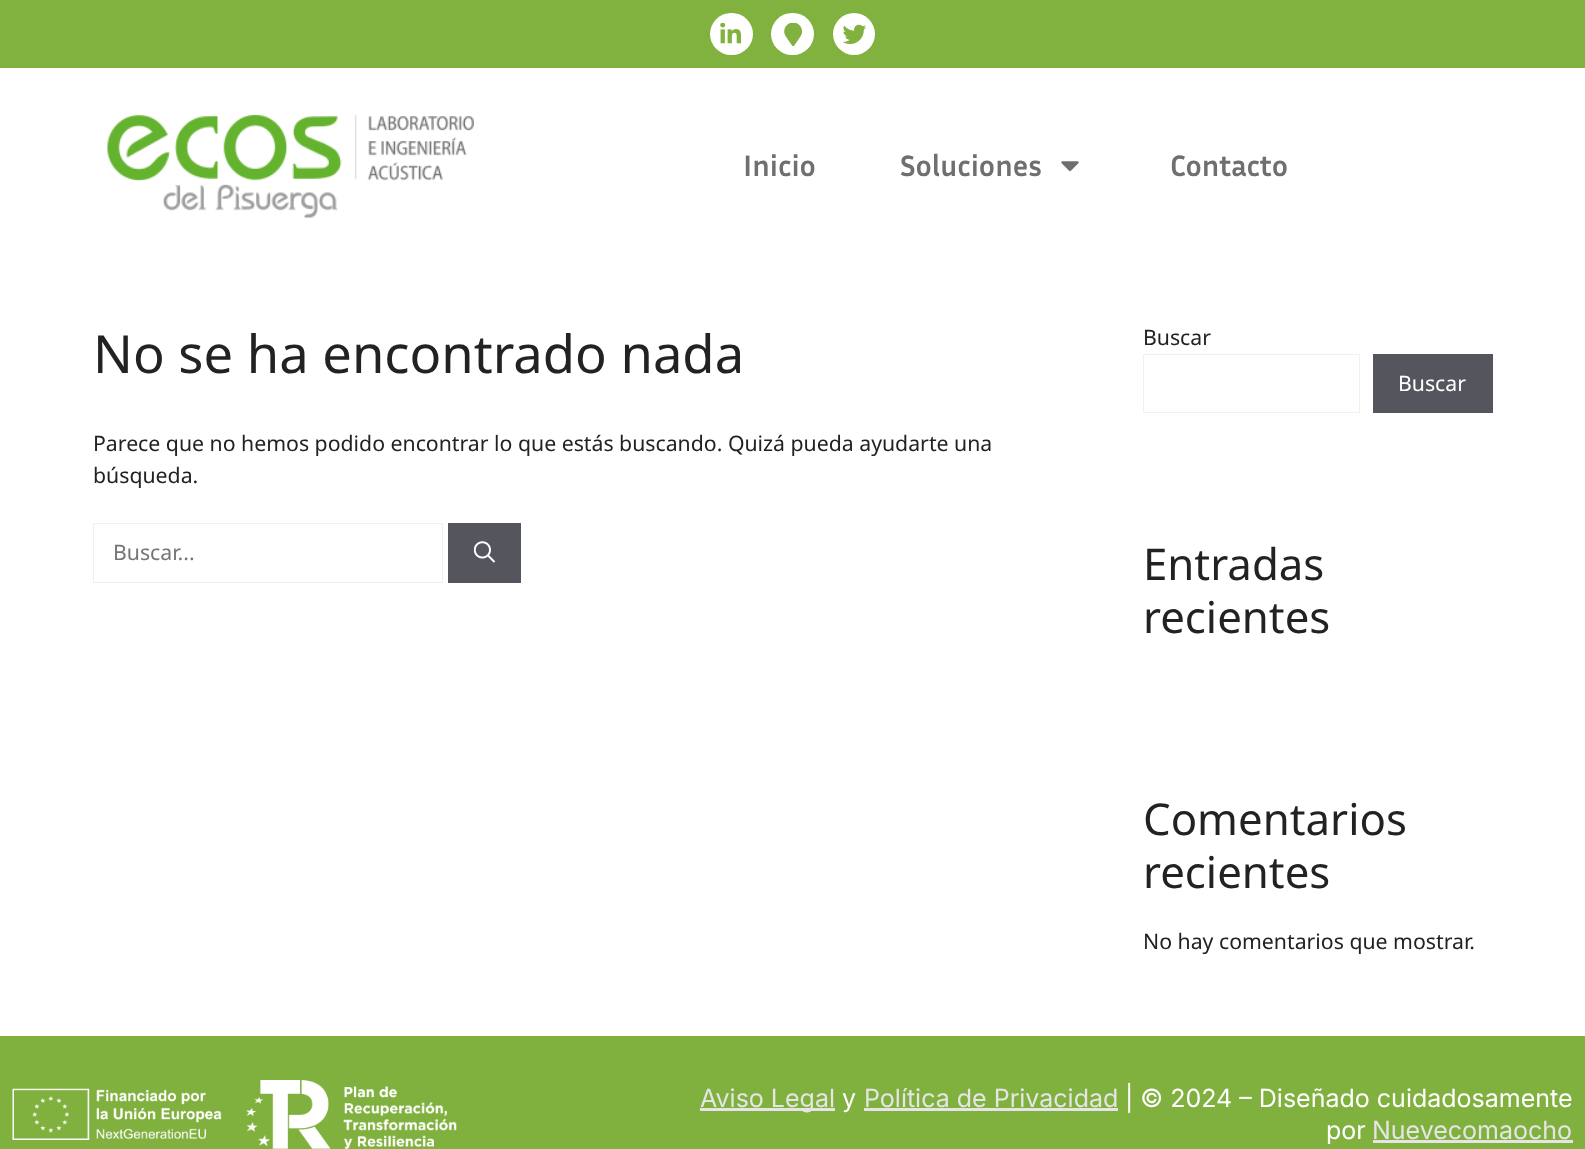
<svg xmlns="http://www.w3.org/2000/svg" width="1585" height="1149" viewBox="0 0 1585 1149">
  <rect width="100%" height="100%" fill="#ffffff"/>
  <rect x="0" y="0" width="1585" height="68" fill="#81b13e"/>
  <rect x="710" y="13" width="43" height="42" rx="21" fill="#ffffff"/>
  <image x="720" y="23" width="21" height="21" href="img1.png"/>
  <rect x="771" y="13" width="43" height="42" rx="21" fill="#ffffff"/>
  <image x="784" y="23" width="18" height="23" href="img2.png"/>
  <circle cx="854" cy="34" r="21" fill="#ffffff"/>
  <image x="843" y="24" width="23" height="20" href="img3.png"/>
  <image x="107" y="114" width="367" height="104" href="img4.png"/>
  <text x="743" y="176" font-family="Inria Sans" font-size="30" font-weight="bold" fill="#6f6f6e">Inicio</text>
  <text x="900" y="176" font-family="Inria Sans" font-size="30" font-weight="bold" fill="#6f6f6e">Soluciones</text>
  <image x="1061" y="161" width="18" height="11" href="img5.png"/>
  <text x="1170" y="176" font-family="Inria Sans" font-size="30" font-weight="bold" fill="#6f6f6e">Contacto</text>
  <text x="93" y="373" font-family="Noto Sans" font-size="52.5" fill="#222222">No se ha encontrado nada</text>
  <text x="93" y="451" font-family="Noto Sans" font-size="21.25" fill="#222222">Parece que no hemos podido encontrar lo que estás buscando. Quizá pueda ayudarte una</text>
  <text x="93" y="483" font-family="Noto Sans" font-size="21.25" fill="#222222">búsqueda.</text>
  <rect x="93.5" y="523.5" width="349" height="59" fill="none" stroke="#f0f0f0"/>
  <text x="113" y="560" font-family="Noto Sans" font-size="21.25" fill="#757575">Buscar...</text>
  <rect x="448" y="523" width="73" height="60" fill="#55555e"/>
  <image x="474" y="541" width="21" height="22" href="img6.png"/>
  <text x="1143" y="345" font-family="Noto Sans" font-size="21.25" fill="#222222">Buscar</text>
  <rect x="1143.5" y="354.5" width="216" height="58" fill="none" stroke="#f0f0f0"/>
  <rect x="1373" y="354" width="120" height="59" fill="#55555e"/>
  <text x="1398" y="391" font-family="Noto Sans" font-size="21.25" fill="#ffffff">Buscar</text>
  <text x="1143" y="580" font-family="Noto Sans" font-size="43.75" fill="#222222">Entradas</text>
  <text x="1143" y="633" font-family="Noto Sans" font-size="43.75" fill="#222222">recientes</text>
  <text x="1143" y="835" font-family="Noto Sans" font-size="43.75" fill="#222222">Comentarios</text>
  <text x="1143" y="888" font-family="Noto Sans" font-size="43.75" fill="#222222">recientes</text>
  <text x="1143" y="949" font-family="Noto Sans" font-size="21.25" fill="#222222">No hay comentarios que mostrar.</text>
  <rect x="0" y="1036" width="1585" height="113" fill="#80b03e"/>
  <image x="12" y="1088" width="210" height="52" href="img7.png"/>
  <image x="246" y="1080" width="211" height="69" href="img8.png"/>
  <rect x="700" y="1108" width="135" height="3" fill="#e5e5e5"/>
  <text x="700" y="1107" font-family="Inter" font-size="25" fill="#e5e5e5">Aviso Legal</text>
  <text x="842" y="1107" font-family="Inter" font-size="25" fill="#ffffff">y</text>
  <text x="864" y="1107" font-family="Inter" font-size="25" fill="#e5e5e5">Política de Privacidad</text>
  <rect x="864" y="1108" width="254" height="3" fill="#e5e5e5"/>
  <text x="1125" y="1107" font-family="Inter" font-size="25" fill="#ffffff">| © 2024 – Diseñado cuidadosamente</text>
  <text x="1326" y="1139" font-family="Inter" font-size="25" fill="#ffffff">por</text>
  <text x="1372" y="1139" font-family="Inter" font-size="25" fill="#e5e5e5">Nuevecomaocho</text>
  <rect x="1373" y="1140" width="200" height="3" fill="#e5e5e5"/>
</svg>
